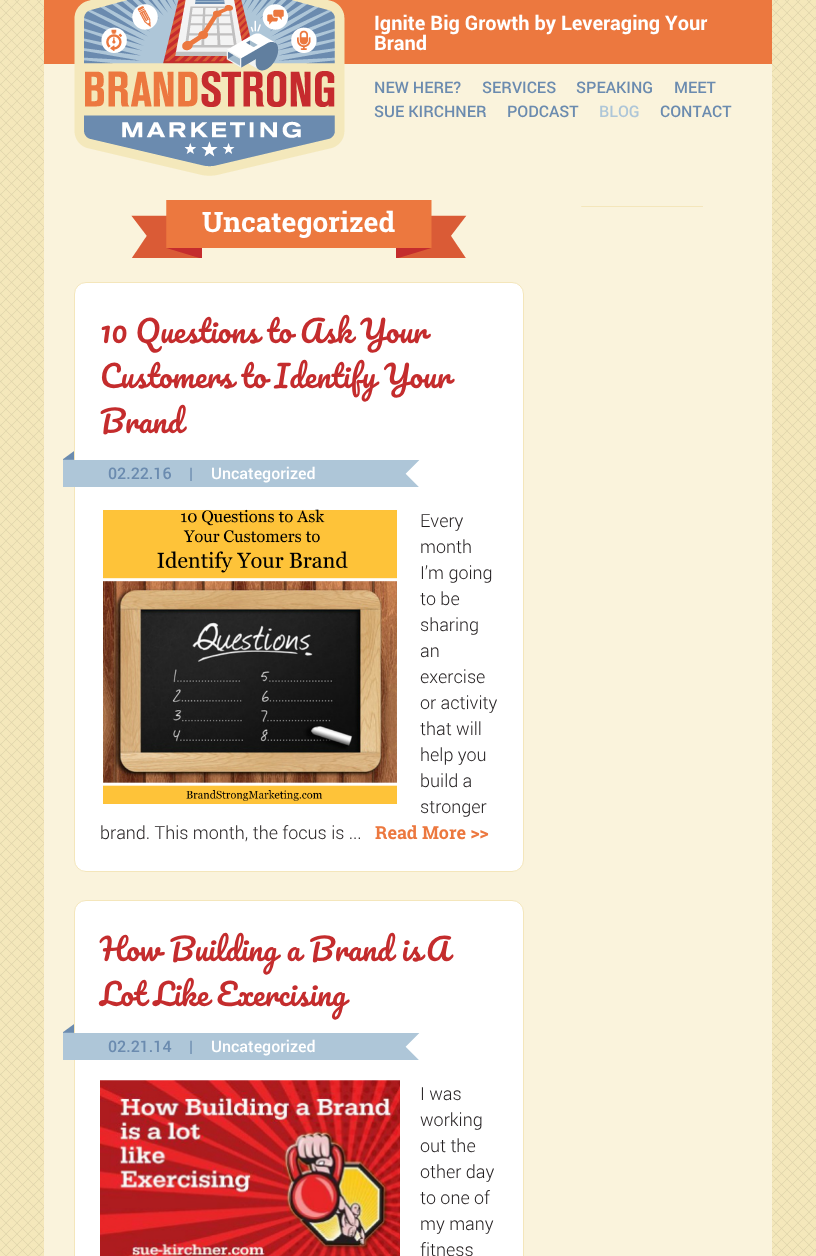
<svg xmlns="http://www.w3.org/2000/svg" width="816" height="1256" viewBox="0 0 816 1256">
  <style>*{font-kerning:none!important;font-variant-ligatures:none!important}</style>
  <rect width="100%" height="100%" fill="#ffffff"/>
  <image x="0" y="0" width="816" height="1256" href="img1.png"/>
  <rect x="44" y="64" width="728" height="1192" fill="#faf3dc"/>
  <rect x="44" y="0" width="728" height="64" fill="#ec783f"/>
  <image x="74" y="0" width="271" height="176" href="img2.png"/>
  <text x="374" y="30" font-family="Roboto" font-size="20" font-weight="bold" fill="#ffffff">Ignite Big Growth by Leveraging Your</text>
  <text x="374" y="50" font-family="Roboto" font-size="20" font-weight="bold" fill="#ffffff">Brand</text>
  <text x="374" y="93" font-family="Roboto" font-size="16" font-weight="500" fill="#6b8baf">NEW HERE?</text>
  <text x="482" y="93" font-family="Roboto" font-size="16" font-weight="500" fill="#6b8baf">SERVICES</text>
  <text x="576" y="93" font-family="Roboto" font-size="16" font-weight="500" fill="#6b8baf">SPEAKING</text>
  <text x="674" y="93" font-family="Roboto" font-size="16" font-weight="500" fill="#6b8baf">MEET</text>
  <text x="374" y="117" font-family="Roboto" font-size="16" font-weight="500" fill="#6b8baf">SUE KIRCHNER</text>
  <text x="507" y="117" font-family="Roboto" font-size="16" font-weight="500" fill="#6b8baf">PODCAST</text>
  <text x="599" y="117" font-family="Roboto" font-size="16" font-weight="500" fill="#aec6d8">BLOG</text>
  <text x="660" y="117" font-family="Roboto" font-size="16" font-weight="500" fill="#6b8baf">CONTACT</text>
  <rect x="582" y="206" width="121" height="1" fill="#f4e6bb"/>
  <circle cx="581.5" cy="206.5" r="0.5" fill="#f4e6bb"/>
  <rect x="202" y="200" width="194" height="48" fill="#ec783f"/>
  <image x="131" y="200" width="71" height="58" href="img3.png"/>
  <text x="202" y="232" font-family="Roboto Slab" font-size="28" font-weight="bold" fill="#ffffff">Uncategorized</text>
  <image x="396" y="200" width="71" height="58" href="img4.png"/>
  <rect x="74.5" y="282.5" width="449" height="589" rx="11.5" fill="#ffffff" stroke="#f4e6bb"/>
  <text x="100" y="343" font-family="Pacifico" font-size="30" fill="#c42c2d">10 Questions to Ask Your</text>
  <text x="100" y="388" font-family="Pacifico" font-size="30" fill="#c42c2d">Customers to Identify Your</text>
  <text x="100" y="433" font-family="Pacifico" font-size="30" fill="#c42c2d">Brand</text>
  <image x="63" y="451" width="357" height="36" href="img5.png"/>
  <text x="108" y="479" font-family="Roboto" font-size="16" font-weight="500" fill="#6b8baf">02.22.16</text>
  <text x="189" y="479" font-family="Roboto" font-size="16" font-weight="500" fill="#6b8baf">|</text>
  <text x="211" y="479" font-family="Roboto" font-size="16" font-weight="500" fill="#ffffff">Uncategorized</text>
  <image x="103" y="509" width="294" height="295" href="img6.png"/>
  <text x="420" y="527" font-family="Roboto" font-size="18" font-weight="300" fill="#231f20">Every</text>
  <text x="420" y="553" font-family="Roboto" font-size="18" font-weight="300" fill="#231f20">month</text>
  <text x="420" y="579" font-family="Roboto" font-size="18" font-weight="300" fill="#231f20">I’m going</text>
  <text x="420" y="605" font-family="Roboto" font-size="18" font-weight="300" fill="#231f20">to be</text>
  <text x="420" y="631" font-family="Roboto" font-size="18" font-weight="300" fill="#231f20">sharing</text>
  <text x="420" y="657" font-family="Roboto" font-size="18" font-weight="300" fill="#231f20">an</text>
  <text x="420" y="683" font-family="Roboto" font-size="18" font-weight="300" fill="#231f20">exercise</text>
  <text x="420" y="709" font-family="Roboto" font-size="18" font-weight="300" fill="#231f20">or activity</text>
  <text x="420" y="735" font-family="Roboto" font-size="18" font-weight="300" fill="#231f20">that will</text>
  <text x="420" y="761" font-family="Roboto" font-size="18" font-weight="300" fill="#231f20">help you</text>
  <text x="420" y="787" font-family="Roboto" font-size="18" font-weight="300" fill="#231f20">build a</text>
  <text x="420" y="813" font-family="Roboto" font-size="18" font-weight="300" fill="#231f20">stronger</text>
  <text x="100" y="839" font-family="Roboto" font-size="18" font-weight="300" fill="#231f20">brand. This month, the focus is ...</text>
  <text x="375" y="839" font-family="Roboto Slab" font-size="18" font-weight="bold" fill="#ec783f">Read More &gt;&gt;</text>
  <rect x="74.5" y="900.5" width="449" height="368" rx="11.5" fill="#ffffff" stroke="#f4e6bb"/>
  <text x="100" y="961" word-spacing="1" font-family="Pacifico" font-size="30" fill="#c42c2d">How Building a Brand is</text>
  <text x="426" y="961" font-family="Pacifico" font-size="30" fill="#c42c2d">A</text>
  <text x="100" y="1006" font-family="Pacifico" font-size="30" fill="#c42c2d">Lot Like Exercising</text>
  <image x="63" y="1024" width="357" height="36" href="img5.png"/>
  <text x="108" y="1052" font-family="Roboto" font-size="16" font-weight="500" fill="#6b8baf">02.21.14</text>
  <text x="189" y="1052" font-family="Roboto" font-size="16" font-weight="500" fill="#6b8baf">|</text>
  <text x="211" y="1052" font-family="Roboto" font-size="16" font-weight="500" fill="#ffffff">Uncategorized</text>
  <image x="100" y="1080" width="300" height="176" href="img7.png"/>
  <text x="420" y="1100" font-family="Roboto" font-size="18" font-weight="300" fill="#231f20">I was</text>
  <text x="420" y="1126" font-family="Roboto" font-size="18" font-weight="300" fill="#231f20">working</text>
  <text x="420" y="1152" font-family="Roboto" font-size="18" font-weight="300" fill="#231f20">out the</text>
  <text x="420" y="1178" font-family="Roboto" font-size="18" font-weight="300" fill="#231f20">other day</text>
  <text x="420" y="1204" font-family="Roboto" font-size="18" font-weight="300" fill="#231f20">to one of</text>
  <text x="420" y="1230" font-family="Roboto" font-size="18" font-weight="300" fill="#231f20">my many</text>
  <text x="420" y="1256" font-family="Roboto" font-size="18" font-weight="300" fill="#231f20">fitness</text>
</svg>
